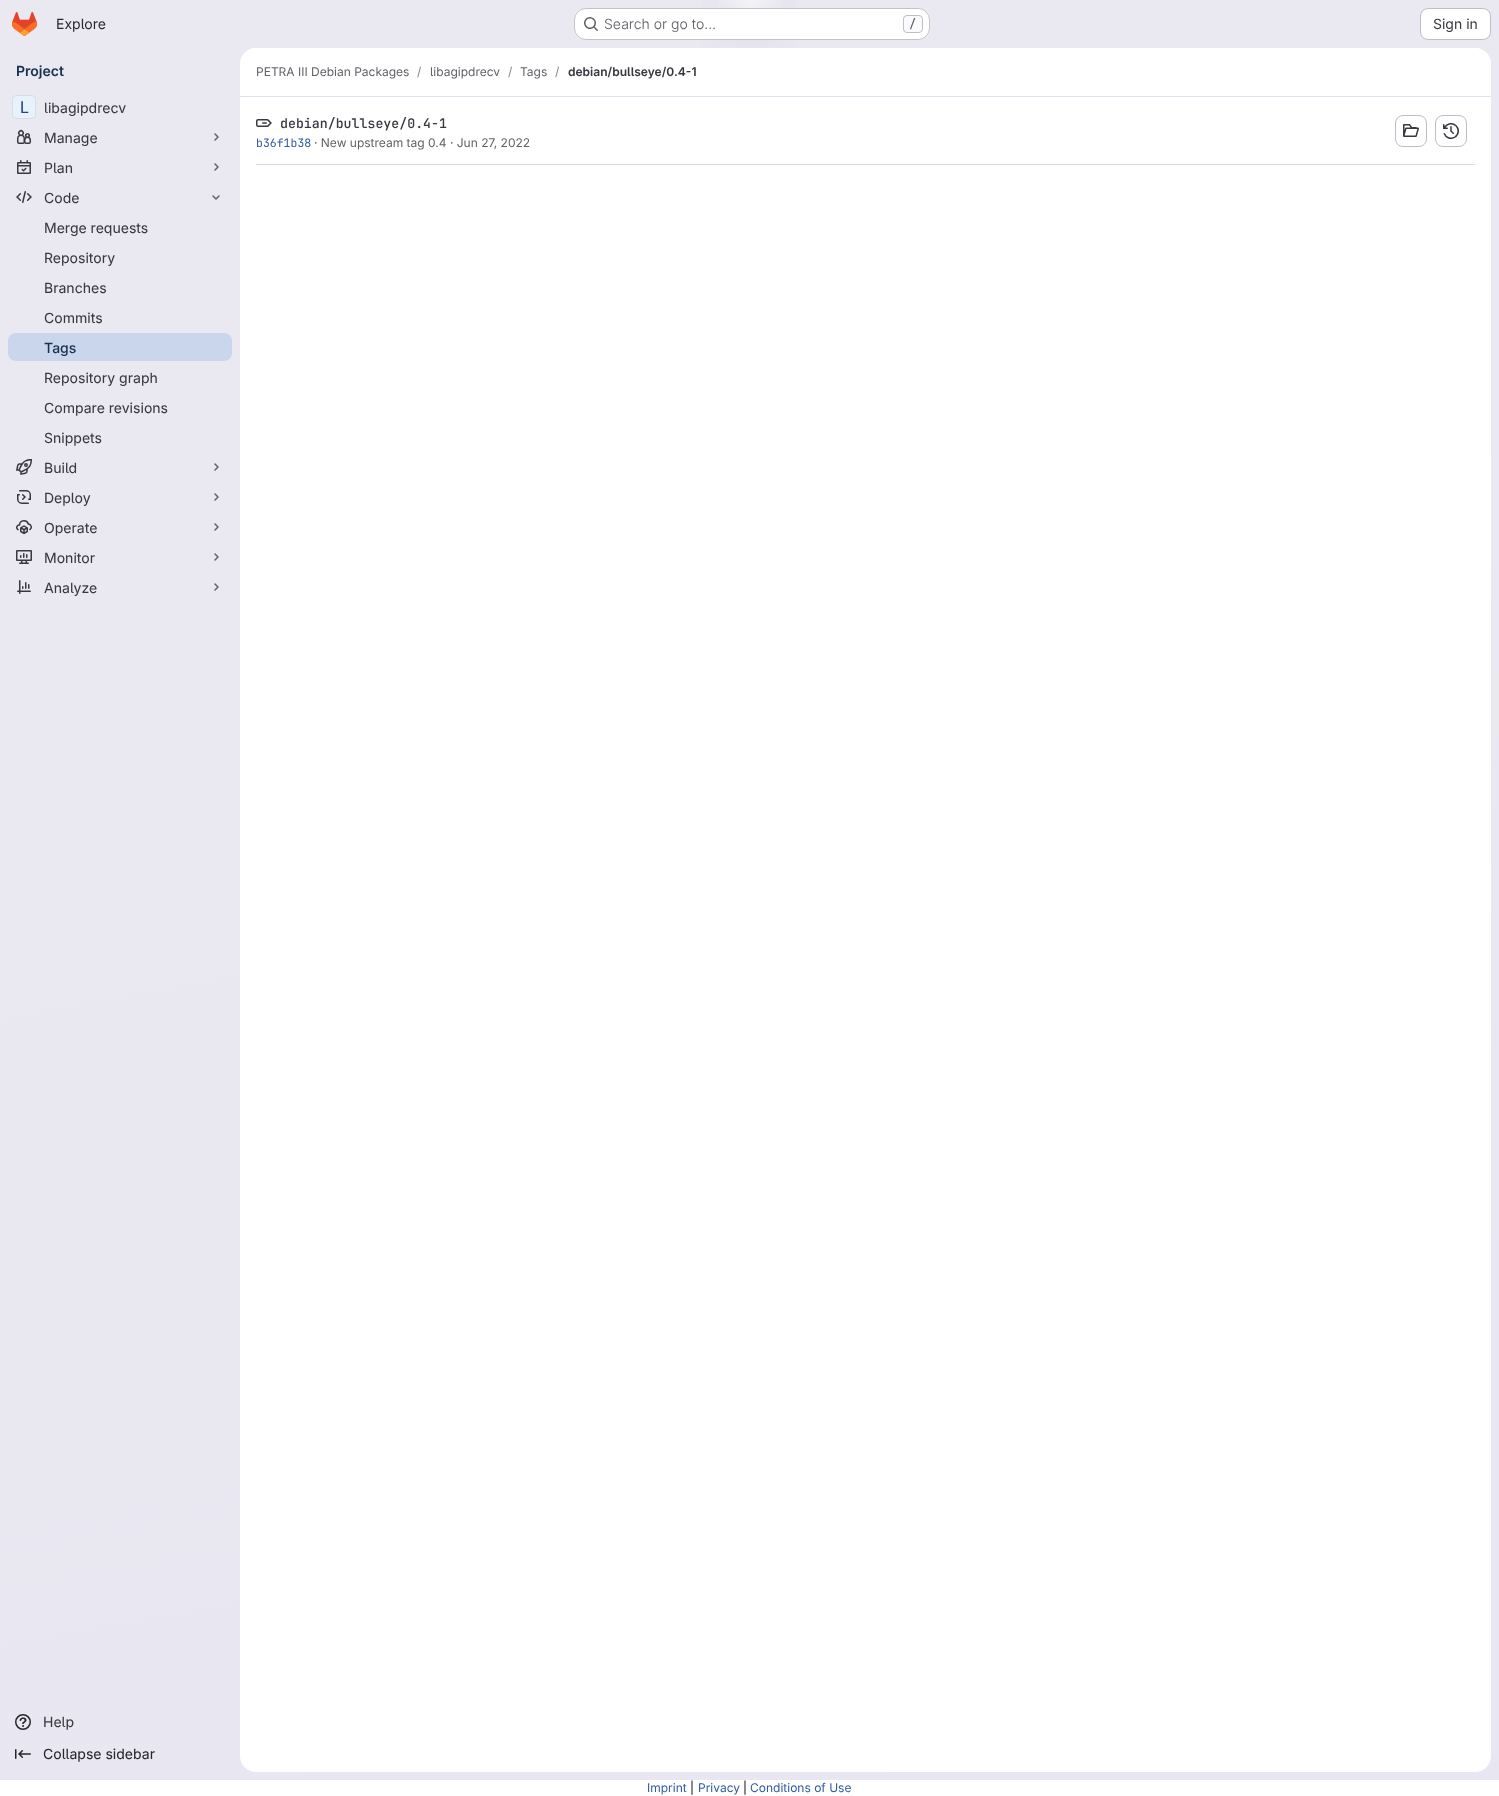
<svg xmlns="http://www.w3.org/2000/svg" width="1499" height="1796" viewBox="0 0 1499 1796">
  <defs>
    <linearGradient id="g1" gradientUnits="userSpaceOnUse" x1="926" y1="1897" x2="573" y2="-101"><stop offset="0" stop-color="#e8e6f0"/><stop offset="0.7" stop-color="#eae9f2"/></linearGradient>
    <radialGradient id="g2" gradientUnits="userSpaceOnUse" cx="0" cy="0" r="1" gradientTransform="matrix(750 0 0 1796 750 0)"><stop offset="0" stop-color="#e4e2ed"/><stop offset="0.09" stop-color="#e4e2ed" stop-opacity="0"/></radialGradient>
    <radialGradient id="g3" gradientUnits="userSpaceOnUse" cx="0" cy="0" r="1" gradientTransform="matrix(750 0 0 1796 750 0)"><stop offset="0" stop-color="#e4e2ec"/><stop offset="0.07" stop-color="#e4e2ec" stop-opacity="0"/></radialGradient>
    <radialGradient id="g4" gradientUnits="userSpaceOnUse" cx="750" cy="0" r="1946"><stop offset="0" stop-color="#ffffff" stop-opacity="0.6"/><stop offset="0.02" stop-color="#ffffff" stop-opacity="0"/></radialGradient>
  </defs>
  <rect width="100%" height="100%" fill="#ffffff"/>
  <rect x="0" y="0" width="1499" height="1780" fill="url(#g1)"/>
  <rect x="701" y="0" width="98" height="48" fill="url(#g2)"/>
  <rect x="722" y="2" width="53" height="40" fill="url(#g3)"/>
  <rect x="718" y="0" width="64" height="33" fill="url(#g4)"/>
  <image x="12" y="12" width="25" height="24" href="img1.png"/>
  <text x="56" y="29" font-family="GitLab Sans" font-size="14" fill="#28272d">Explore</text>
  <rect x="574" y="8" width="356" height="32" rx="12" fill="#ffffff"/>
  <rect x="574.5" y="8.5" width="355" height="31" rx="11.5" fill="none" stroke="#050506" stroke-opacity="0.24"/>
  <image x="584" y="17" width="14" height="14" href="img2.png"/>
  <text x="604" y="29" font-family="GitLab Sans" font-size="14" font-weight="300" fill="#626168">Search or go to…</text>
  <rect x="903.5" y="15.5" width="19" height="17" rx="3.5" fill="#fbfafd" stroke="#bfbfc3"/>
  <text x="909" y="28" font-family="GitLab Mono" font-size="12" font-weight="500" fill="#626168">/</text>
  <rect x="1420.5" y="8.5" width="70" height="31" rx="7.5" fill="#ffffff" stroke="#bfbfc3"/>
  <text x="1433" y="29" font-family="GitLab Sans" font-size="14" fill="#3a383f">Sign in</text>
  <text x="16" y="76" font-family="GitLab Sans" font-size="14" font-weight="600" fill="#18334e">Project</text>
  <rect x="12" y="95" width="24" height="24" rx="4" fill="#ffffff"/>
  <rect x="12" y="95" width="24" height="24" rx="4" fill="#9dc7f1" fill-opacity="0.24"/>
  <rect x="12.5" y="95.5" width="23" height="23" rx="3.5" fill="none" stroke="#050506" stroke-opacity="0.08"/>
  <text x="20" y="113" font-family="'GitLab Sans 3'" font-size="16" fill="#284779">L</text>
  <text x="44" y="113" font-family="'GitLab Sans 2'" font-size="14" fill="#3a383f">libagipdrecv</text>
  <image x="17" y="129" width="14" height="15" href="img3.png"/>
  <text x="44" y="143" font-family="'GitLab Sans 2'" font-size="14" fill="#3a383f">Manage</text>
  <path d="M215 134L218 137L215 140" fill="none" stroke="#626168" stroke-width="1.5" stroke-linecap="round" stroke-linejoin="round"/>
  <image x="17" y="160" width="14" height="14" href="img4.png"/>
  <text x="44" y="173" font-family="'GitLab Sans 2'" font-size="14" fill="#3a383f">Plan</text>
  <path d="M215 164L218 167L215 170" fill="none" stroke="#626168" stroke-width="1.5" stroke-linecap="round" stroke-linejoin="round"/>
  <image x="16" y="191" width="16" height="12" href="img5.png"/>
  <text x="44" y="203" font-family="'GitLab Sans 2'" font-size="14" fill="#3a383f">Code</text>
  <path d="M219 196L216 199L213 196" fill="none" stroke="#626168" stroke-width="1.5" stroke-linecap="round" stroke-linejoin="round"/>
  <text x="44" y="233" font-family="'GitLab Sans 2'" font-size="14" fill="#3a383f">Merge requests</text>
  <text x="44" y="263" font-family="'GitLab Sans 2'" font-size="14" fill="#3a383f">Repository</text>
  <text x="44" y="293" font-family="'GitLab Sans 2'" font-size="14" fill="#3a383f">Branches</text>
  <text x="44" y="323" font-family="'GitLab Sans 2'" font-size="14" fill="#3a383f">Commits</text>
  <rect x="8" y="333" width="224" height="28" rx="8" fill="#cad6eb"/>
  <text x="44" y="353" font-family="GitLab Sans" font-size="14" font-weight="500" fill="#18334e">Tags</text>
  <text x="44" y="383" font-family="'GitLab Sans 2'" font-size="14" fill="#3a383f">Repository graph</text>
  <text x="44" y="413" font-family="'GitLab Sans 2'" font-size="14" fill="#3a383f">Compare revisions</text>
  <text x="44" y="443" font-family="'GitLab Sans 2'" font-size="14" fill="#3a383f">Snippets</text>
  <image x="16" y="459" width="16" height="16" href="img6.png"/>
  <text x="44" y="473" font-family="'GitLab Sans 2'" font-size="14" fill="#3a383f">Build</text>
  <path d="M215 464L218 467L215 470" fill="none" stroke="#626168" stroke-width="1.5" stroke-linecap="round" stroke-linejoin="round"/>
  <image x="17" y="490" width="14" height="14" href="img7.png"/>
  <text x="44" y="503" font-family="'GitLab Sans 2'" font-size="14" fill="#3a383f">Deploy</text>
  <path d="M215 494L218 497L215 500" fill="none" stroke="#626168" stroke-width="1.5" stroke-linecap="round" stroke-linejoin="round"/>
  <image x="16" y="520" width="16" height="15" href="img8.png"/>
  <text x="44" y="533" font-family="'GitLab Sans 2'" font-size="14" fill="#3a383f">Operate</text>
  <path d="M215 524L218 527L215 530" fill="none" stroke="#626168" stroke-width="1.5" stroke-linecap="round" stroke-linejoin="round"/>
  <image x="16" y="550" width="16" height="14" href="img9.png"/>
  <text x="44" y="563" font-family="'GitLab Sans 2'" font-size="14" fill="#3a383f">Monitor</text>
  <path d="M215 554L218 557L215 560" fill="none" stroke="#626168" stroke-width="1.5" stroke-linecap="round" stroke-linejoin="round"/>
  <image x="17" y="580" width="14" height="14" href="img10.png"/>
  <text x="44" y="593" font-family="'GitLab Sans 2'" font-size="14" fill="#3a383f">Analyze</text>
  <path d="M215 584L218 587L215 590" fill="none" stroke="#626168" stroke-width="1.5" stroke-linecap="round" stroke-linejoin="round"/>
  <image x="15" y="1714" width="16" height="16" href="img11.png"/>
  <text x="43" y="1727" font-family="'GitLab Sans 2'" font-size="14" fill="#3a383f">Help</text>
  <image x="15" y="1749" width="16" height="10" href="img12.png"/>
  <text x="43" y="1759" font-family="'GitLab Sans 2'" font-size="14" fill="#28272d">Collapse sidebar</text>
  <rect x="240" y="48" width="1251" height="1724" rx="16" fill="#ffffff"/>
  <path d="M256 48H1475C1484 48 1491 55 1491 64V97H240V64C240 55 247 48 256 48Z" fill="#ffffff"/>
  <rect x="240" y="96" width="1251" height="1" fill="#e1dfec"/>
  <text x="256" y="76" font-family="GitLab Sans" font-size="12" fill="#626168">PETRA III Debian Packages</text>
  <text x="417" y="76" font-family="GitLab Sans" font-size="12" fill="#89888d">/</text>
  <text x="430" y="76" font-family="GitLab Sans" font-size="12" fill="#626168">libagipdrecv</text>
  <text x="508" y="76" font-family="GitLab Sans" font-size="12" fill="#89888d">/</text>
  <text x="520" y="76" font-family="GitLab Sans" font-size="12" fill="#626168">Tags</text>
  <text x="555" y="76" font-family="GitLab Sans" font-size="12" fill="#89888d">/</text>
  <text x="568" y="76" font-family="GitLab Sans" font-size="12" font-weight="600" fill="#3a383f">debian/bullseye/0.4-1</text>
  <rect x="256" y="164" width="1219" height="1" fill="#dcdcde"/>
  <image x="256" y="119" width="16" height="8" href="img13.png"/>
  <text x="280" y="128" font-family="GitLab Mono" font-size="13.25" font-weight="600" fill="#3a383f">debian/bullseye/0.4-1</text>
  <text x="256" y="147" font-family="GitLab Mono" font-size="11.5" fill="#2f5ca0">b36f1b38</text>
  <text x="314" y="147" font-family="GitLab Sans" font-size="12" fill="#626168">· New upstream tag 0.4 · Jun 27, 2022</text>
  <rect x="1395.5" y="115.5" width="31" height="31" rx="7.5" fill="none" stroke="#bfbfc3"/>
  <image x="1403" y="124" width="16" height="13" href="img14.png"/>
  <rect x="1435.5" y="115.5" width="31" height="31" rx="7.5" fill="none" stroke="#bfbfc3"/>
  <image x="1443" y="123" width="16" height="16" href="img15.png"/>
  <text x="647" y="1792" font-family="GitLab Sans" font-size="12" fill="#2f5ca0">Imprint</text>
  <text x="690" y="1792" font-family="GitLab Sans" font-size="12" fill="#000000">|</text>
  <text x="698" y="1792" font-family="GitLab Sans" font-size="12" fill="#2f5ca0">Privacy</text>
  <text x="743" y="1792" font-family="GitLab Sans" font-size="12" fill="#000000">|</text>
  <text x="750" y="1792" font-family="GitLab Sans" font-size="12" fill="#2f5ca0">Conditions of Use</text>
</svg>
